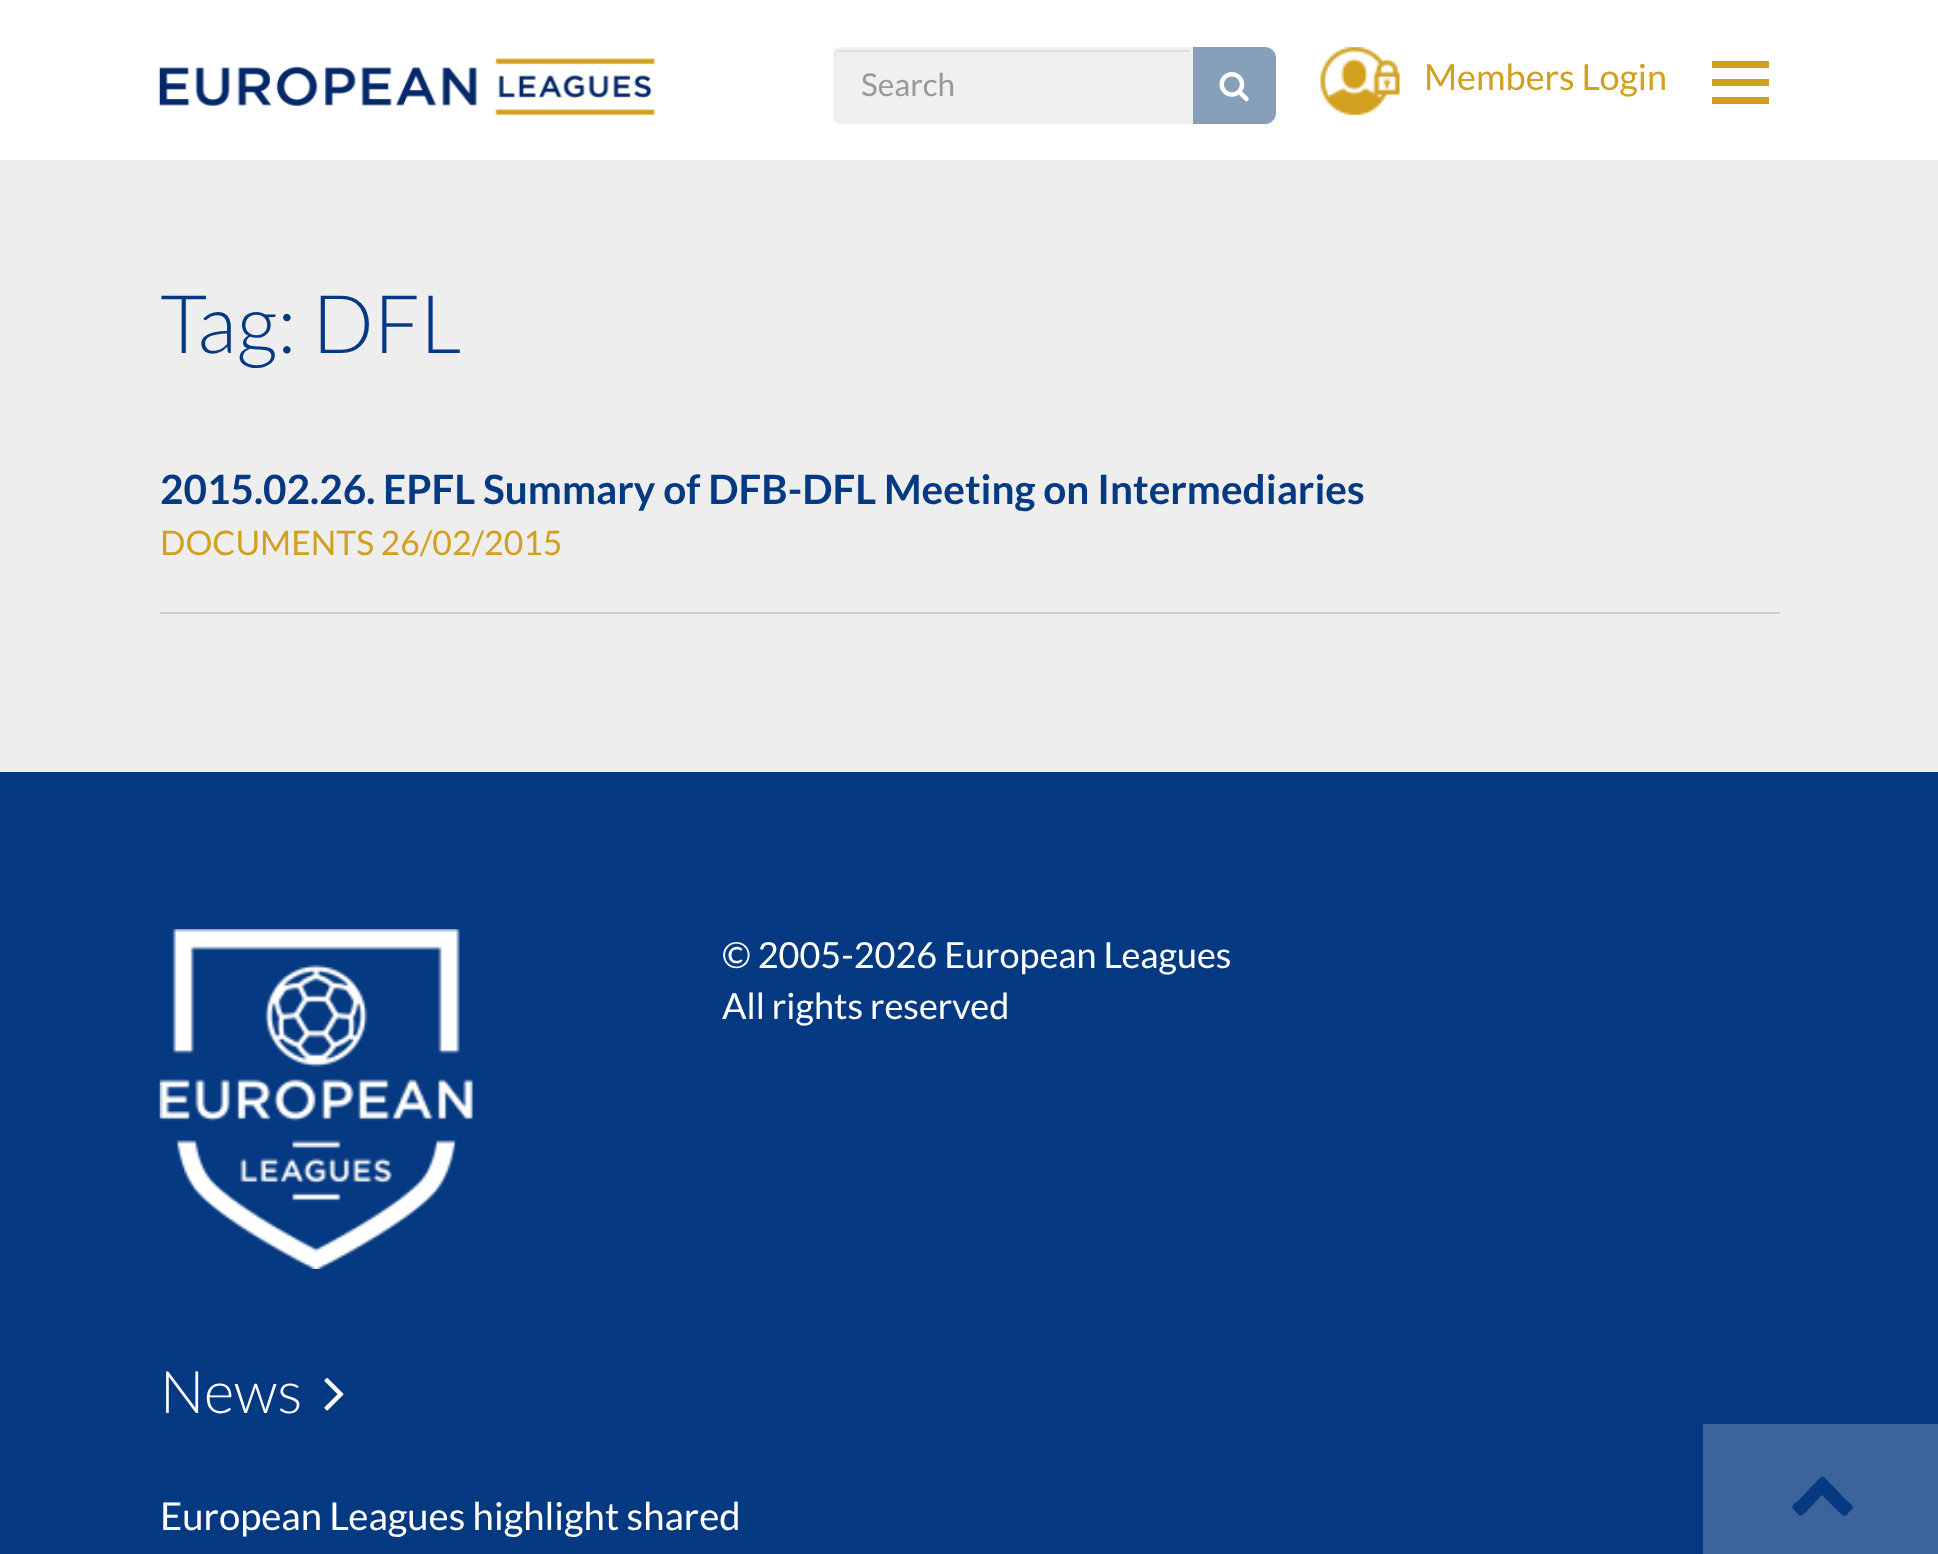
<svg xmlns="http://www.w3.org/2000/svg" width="1938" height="1554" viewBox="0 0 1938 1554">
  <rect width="100%" height="100%" fill="#eeeeee"/>
  <rect x="0" y="0" width="1938" height="160" fill="#ffffff"/>
  <image x="159" y="58" width="496" height="57" href="img1.png"/>
  <path d="M840 47H1193V124H840C836 124 833 121 833 117V54C833 50 836 47 840 47Z" fill="#f0f0f0"/>
  <path d="M839 52H1190V50H840C837 50 835 52 835 55V56C835 54 837 52 839 52Z" fill="#dedede"/>
  <text x="861" y="96" font-family="Lato" font-size="31.5" fill="#999999">Search</text>
  <path d="M1193 47H1265C1271 47 1276 52 1276 58V113C1276 119 1271 124 1265 124H1193Z" fill="#889fba"/>
  <image x="1219" y="72" width="30" height="30" href="img2.png"/>
  <image x="1320" y="47" width="81" height="68" href="img3.png"/>
  <text x="1424" y="90" font-family="Lato" font-size="36" fill="#d2a01e">Members Login</text>
  <rect x="1712" y="79" width="57" height="7" fill="#d2a01e"/>
  <rect x="1712" y="61" width="57" height="7" fill="#d2a01e"/>
  <rect x="1712" y="97" width="57" height="7" fill="#d2a01e"/>
  <text x="160" y="353" font-family="Lato" font-size="81" font-weight="300" fill="#053982">Tag: DFL</text>
  <rect x="160" y="612" width="1620" height="2" fill="#c5cfdb"/>
  <text x="160" y="504" font-family="Lato" font-size="40.5" font-weight="bold" fill="#053982">2015.02.26. EPFL Summary of DFB-DFL Meeting on Intermediaries</text>
  <text x="160" y="555" font-family="Lato" font-size="33.75" fill="#d2a01e">DOCUMENTS 26/02/2015</text>
  <rect x="0" y="772" width="1938" height="782" fill="#053982"/>
  <image x="159" y="929" width="314" height="340" href="img4.png"/>
  <text x="722" y="968" font-family="Lato" font-size="36" fill="#ffffff">© 2005-2026 European Leagues</text>
  <text x="722" y="1019" font-family="Lato" font-size="36" fill="#ffffff">All rights reserved</text>
  <text x="160" y="1413" font-family="Lato" font-size="58.5" font-weight="300" fill="#ffffff">News</text>
  <image x="324" y="1377" width="20" height="34" href="img5.png"/>
  <text x="160" y="1530" font-family="Lato" font-size="38.25" fill="#ffffff">European Leagues highlight shared</text>
  <rect x="1703" y="1424" width="235" height="130" fill="#3b639c"/>
  <path d="M1852 1509C1845 1516 1846 1519 1839 1512L1822 1495L1806 1512C1799 1518 1800 1516 1794 1510C1790 1506 1794 1504 1798 1501L1816 1482C1823 1475 1822 1475 1829 1482L1847 1501C1848 1502 1855 1506 1852 1509Z" fill="#053982"/>
</svg>
